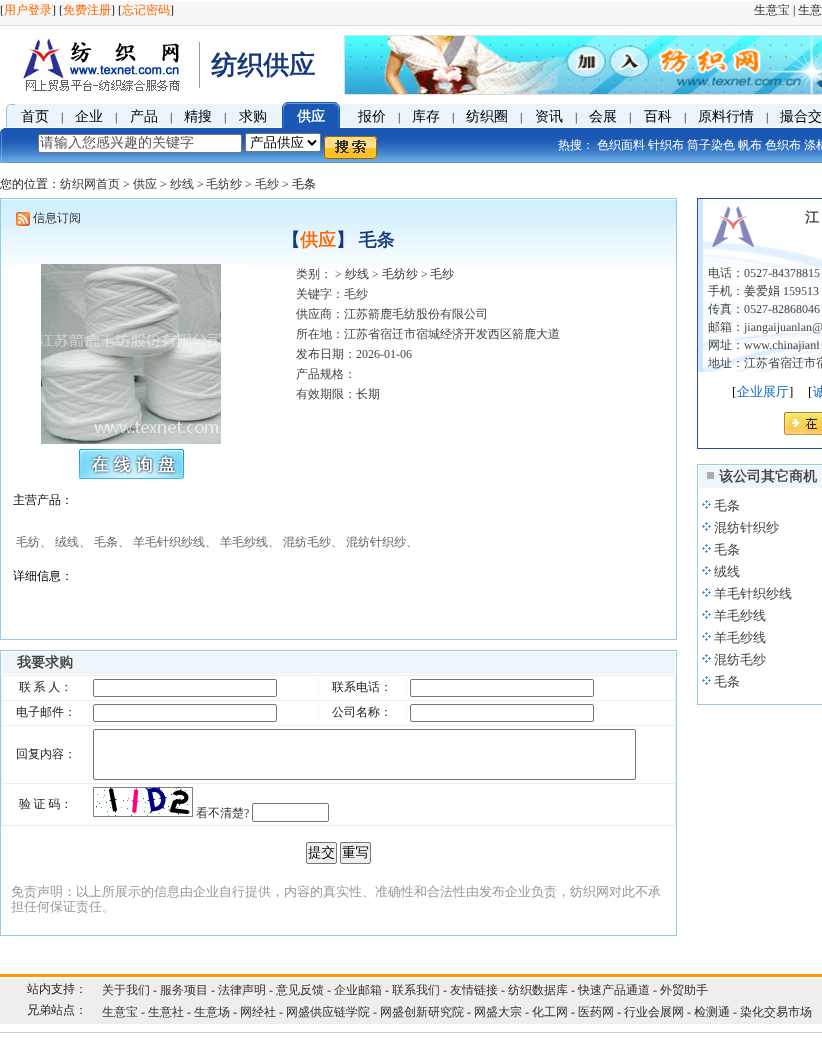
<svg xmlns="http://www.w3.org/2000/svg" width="822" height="1044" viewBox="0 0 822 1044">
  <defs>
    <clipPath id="clip1"><rect x="40" y="136" width="200" height="15"/></clipPath>
  </defs>
  <rect width="100%" height="100%" fill="#ffffff"/>
  <rect x="0" y="1" width="822" height="24" fill="#f8f8f8"/>
  <rect x="0" y="25" width="822" height="1" fill="#dddddd"/>
  <text x="0" y="14" font-family="Liberation Serif" font-size="12" fill="#222222">[</text>
  <text x="4" y="14" font-family="WenQuanYi Zen Hei" font-size="12" font-weight="500" fill="#ff6600">用户登录</text>
  <text x="52" y="14" font-family="Liberation Serif" font-size="12" fill="#222222">] [</text>
  <text x="63" y="14" font-family="WenQuanYi Zen Hei" font-size="12" font-weight="500" fill="#ff6600">免费注册</text>
  <text x="111" y="14" font-family="Liberation Serif" font-size="12" fill="#222222">] [</text>
  <text x="122" y="14" font-family="WenQuanYi Zen Hei" font-size="12" font-weight="500" fill="#ff6600">忘记密码</text>
  <text x="170" y="14" font-family="Liberation Serif" font-size="12" fill="#222222">]</text>
  <text x="754" y="14" font-family="WenQuanYi Zen Hei" font-size="12" font-weight="500" fill="#333333">生意宝</text>
  <text x="793" y="14" font-family="Liberation Serif" font-size="12" fill="#000000">|</text>
  <text x="798" y="14" font-family="WenQuanYi Zen Hei" font-size="12" font-weight="500" fill="#333333">生意</text>
  <image x="21" y="36" width="179" height="55" href="img1.png"/>
  <text x="211" y="74" font-family="WenQuanYi Zen Hei" font-size="26" font-weight="bold" fill="#16387c">纺织供应</text>
  <image x="344" y="35" width="478" height="60" href="img2.png"/>
  <image x="6" y="104" width="9" height="23" href="img3.png"/>
  <rect x="15" y="104" width="267" height="23" fill="#ebf3fb"/>
  <text x="21" y="121" font-family="WenQuanYi Zen Hei" font-size="14" font-weight="500" fill="#000000">首页</text>
  <text x="61" y="121" font-family="Liberation Serif" font-size="12" fill="#000000">|</text>
  <text x="75" y="121" font-family="WenQuanYi Zen Hei" font-size="14" font-weight="500" fill="#000000">企业</text>
  <text x="115" y="121" font-family="Liberation Serif" font-size="12" fill="#000000">|</text>
  <text x="130" y="121" font-family="WenQuanYi Zen Hei" font-size="14" font-weight="500" fill="#000000">产品</text>
  <text x="170" y="121" font-family="Liberation Serif" font-size="12" fill="#000000">|</text>
  <text x="184" y="121" font-family="WenQuanYi Zen Hei" font-size="14" font-weight="500" fill="#000000">精搜</text>
  <text x="224" y="121" font-family="Liberation Serif" font-size="12" fill="#000000">|</text>
  <text x="239" y="121" font-family="WenQuanYi Zen Hei" font-size="14" font-weight="500" fill="#000000">求购</text>
  <image x="282" y="102" width="58" height="26" href="img4.png"/>
  <text x="297" y="121" font-family="WenQuanYi Zen Hei" font-size="14" font-weight="bold" fill="#ffffff">供应</text>
  <rect x="340" y="104" width="482" height="23" fill="#ebf3fb"/>
  <text x="358" y="121" font-family="WenQuanYi Zen Hei" font-size="14" font-weight="500" fill="#000000">报价</text>
  <text x="398" y="121" font-family="Liberation Serif" font-size="12" fill="#000000">|</text>
  <text x="412" y="121" font-family="WenQuanYi Zen Hei" font-size="14" font-weight="500" fill="#000000">库存</text>
  <text x="452" y="121" font-family="Liberation Serif" font-size="12" fill="#000000">|</text>
  <text x="466" y="121" font-family="WenQuanYi Zen Hei" font-size="14" font-weight="500" fill="#000000">纺织圈</text>
  <text x="520" y="121" font-family="Liberation Serif" font-size="12" fill="#000000">|</text>
  <text x="535" y="121" font-family="WenQuanYi Zen Hei" font-size="14" font-weight="500" fill="#000000">资讯</text>
  <text x="575" y="121" font-family="Liberation Serif" font-size="12" fill="#000000">|</text>
  <text x="589" y="121" font-family="WenQuanYi Zen Hei" font-size="14" font-weight="500" fill="#000000">会展</text>
  <text x="629" y="121" font-family="Liberation Serif" font-size="12" fill="#000000">|</text>
  <text x="644" y="121" font-family="WenQuanYi Zen Hei" font-size="14" font-weight="500" fill="#000000">百科</text>
  <text x="684" y="121" font-family="Liberation Serif" font-size="12" fill="#000000">|</text>
  <text x="698" y="121" font-family="WenQuanYi Zen Hei" font-size="14" font-weight="500" fill="#000000">原料行情</text>
  <text x="766" y="121" font-family="Liberation Serif" font-size="12" fill="#000000">|</text>
  <text x="780" y="121" font-family="WenQuanYi Zen Hei" font-size="14" font-weight="500" fill="#000000">撮合交</text>
  <image x="0" y="128" width="8" height="35" href="img5.png"/>
  <image x="8" y="128" width="814" height="35" href="img6.png"/>
  <rect x="38.5" y="134.5" width="203" height="18" rx="1.5" fill="#ffffff" stroke="#767676"/>
  <g clip-path="url(#clip1)">
    <text x="40" y="147" font-family="WenQuanYi Zen Hei" font-size="14" font-weight="500" fill="#555555">请输入您感兴趣的关键字</text>
  </g>
  <rect x="245.5" y="133.5" width="75" height="18" rx="1.5" fill="#ffffff" stroke="#767676"/>
  <path d="M308 140.5L312 144.5L316 140.5" fill="none" stroke="#000000" stroke-width="2"/>
  <text x="250" y="147" font-family="WenQuanYi Zen Hei" font-size="13.5" font-weight="500" fill="#000000">产品供应</text>
  <image x="324" y="136" width="53" height="23" href="img7.png"/>
  <text x="558" y="149" font-family="WenQuanYi Zen Hei" font-size="12" font-weight="500" fill="#ffffff">热搜：</text>
  <text x="597" y="149" font-family="WenQuanYi Zen Hei" font-size="12" font-weight="500" fill="#ffffff">色织面料</text>
  <text x="648" y="149" font-family="WenQuanYi Zen Hei" font-size="12" font-weight="500" fill="#ffffff">针织布</text>
  <text x="687" y="149" font-family="WenQuanYi Zen Hei" font-size="12" font-weight="500" fill="#ffffff">筒子染色</text>
  <text x="738" y="149" font-family="WenQuanYi Zen Hei" font-size="12" font-weight="500" fill="#ffffff">帆布</text>
  <text x="765" y="149" font-family="WenQuanYi Zen Hei" font-size="12" font-weight="500" fill="#ffffff">色织布</text>
  <text x="804" y="149" font-family="WenQuanYi Zen Hei" font-size="12" font-weight="500" fill="#ffffff">涤棉</text>
  <text x="0" y="188" font-family="WenQuanYi Zen Hei" font-size="12" font-weight="500" fill="#222222">您的位置：</text>
  <text x="60" y="188" font-family="WenQuanYi Zen Hei" font-size="12" font-weight="500" fill="#333333">纺织网首页</text>
  <text x="123" y="188" font-family="Liberation Serif" font-size="12" fill="#222222">&gt;</text>
  <text x="133" y="188" font-family="WenQuanYi Zen Hei" font-size="12" font-weight="500" fill="#333333">供应</text>
  <text x="160" y="188" font-family="Liberation Serif" font-size="12" fill="#222222">&gt;</text>
  <text x="170" y="188" font-family="WenQuanYi Zen Hei" font-size="12" font-weight="500" fill="#333333">纱线</text>
  <text x="197" y="188" font-family="Liberation Serif" font-size="12" fill="#222222">&gt;</text>
  <text x="206" y="188" font-family="WenQuanYi Zen Hei" font-size="12" font-weight="500" fill="#333333">毛纺纱</text>
  <text x="245" y="188" font-family="Liberation Serif" font-size="12" fill="#222222">&gt;</text>
  <text x="255" y="188" font-family="WenQuanYi Zen Hei" font-size="12" font-weight="500" fill="#333333">毛纱</text>
  <text x="282" y="188" font-family="Liberation Serif" font-size="12" fill="#222222">&gt;</text>
  <text x="292" y="188" font-family="WenQuanYi Zen Hei" font-size="12" font-weight="500" fill="#222222">毛条</text>
  <image x="1" y="199" width="675" height="69" href="img8.png"/>
  <rect x="0.5" y="198.5" width="676" height="441" fill="none" stroke="#95cde6"/>
  <image x="16" y="212" width="14" height="14" href="img9.png"/>
  <text x="33" y="222" font-family="WenQuanYi Zen Hei" font-size="12" font-weight="500" fill="#333333">信息订阅</text>
  <text x="282" y="246" font-family="WenQuanYi Zen Hei" font-size="18" font-weight="bold" fill="#16387c">【</text>
  <text x="300" y="246" font-family="WenQuanYi Zen Hei" font-size="18" font-weight="bold" fill="#ff6600">供应</text>
  <text x="336" y="246" word-spacing="-1" font-family="WenQuanYi Zen Hei" font-size="18" font-weight="bold" fill="#16387c">】 毛条</text>
  <image x="16" y="264" width="230" height="180" href="img10.png"/>
  <image x="79" y="449" width="105" height="30" href="img11.png"/>
  <text x="296" y="278" font-family="WenQuanYi Zen Hei" font-size="12" font-weight="500" fill="#444444">类别：</text>
  <text x="335" y="278" font-family="Liberation Serif" font-size="12" fill="#444444">&gt;</text>
  <text x="345" y="278" font-family="WenQuanYi Zen Hei" font-size="12" font-weight="500" fill="#333333">纱线</text>
  <text x="372" y="278" font-family="Liberation Serif" font-size="12" fill="#444444">&gt;</text>
  <text x="382" y="278" font-family="WenQuanYi Zen Hei" font-size="12" font-weight="500" fill="#333333">毛纺纱</text>
  <text x="421" y="278" font-family="Liberation Serif" font-size="12" fill="#444444">&gt;</text>
  <text x="430" y="278" font-family="WenQuanYi Zen Hei" font-size="12" font-weight="500" fill="#333333">毛纱</text>
  <text x="296" y="298" font-family="WenQuanYi Zen Hei" font-size="12" font-weight="500" fill="#444444">关键字：毛纱</text>
  <text x="296" y="318" font-family="WenQuanYi Zen Hei" font-size="12" font-weight="500" fill="#444444">供应商：江苏箭鹿毛纺股份有限公司</text>
  <text x="296" y="338" font-family="WenQuanYi Zen Hei" font-size="12" font-weight="500" fill="#444444">所在地：江苏省宿迁市宿城经济开发西区箭鹿大道</text>
  <text x="296" y="358" font-family="WenQuanYi Zen Hei" font-size="12" font-weight="500" fill="#444444">发布日期：</text>
  <text x="356" y="358" font-family="Liberation Serif" font-size="12" fill="#444444">2026-01-06</text>
  <text x="296" y="378" font-family="WenQuanYi Zen Hei" font-size="12" font-weight="500" fill="#444444">产品规格：</text>
  <text x="296" y="398" font-family="WenQuanYi Zen Hei" font-size="12" font-weight="500" fill="#444444">有效期限：长期</text>
  <text x="13" y="504" font-family="WenQuanYi Zen Hei" font-size="12" font-weight="500" fill="#000000">主营产品：</text>
  <text x="16" y="546" font-family="WenQuanYi Zen Hei" font-size="12" font-weight="500" fill="#666666">毛纺、</text>
  <text x="55" y="546" font-family="WenQuanYi Zen Hei" font-size="12" font-weight="500" fill="#666666">绒线、</text>
  <text x="94" y="546" font-family="WenQuanYi Zen Hei" font-size="12" font-weight="500" fill="#666666">毛条、</text>
  <text x="133" y="546" font-family="WenQuanYi Zen Hei" font-size="12" font-weight="500" fill="#666666">羊毛针织纱线、</text>
  <text x="220" y="546" font-family="WenQuanYi Zen Hei" font-size="12" font-weight="500" fill="#666666">羊毛纱线、</text>
  <text x="283" y="546" font-family="WenQuanYi Zen Hei" font-size="12" font-weight="500" fill="#666666">混纺毛纱、</text>
  <text x="346" y="546" font-family="WenQuanYi Zen Hei" font-size="12" font-weight="500" fill="#666666">混纺针织纱、</text>
  <text x="13" y="580" font-family="WenQuanYi Zen Hei" font-size="12" font-weight="500" fill="#000000">详细信息：</text>
  <rect x="0.5" y="650.5" width="676" height="285" fill="none" stroke="#95cde6"/>
  <rect x="2" y="652" width="673" height="22" fill="#eff6fb"/>
  <text x="17" y="667" font-family="WenQuanYi Zen Hei" font-size="14" font-weight="bold" fill="#444444">我要求购</text>
  <rect x="1" y="675" width="675" height="151" fill="#eeeeee"/>
  <rect x="89" y="676" width="318" height="24" fill="#fafafa"/>
  <rect x="2" y="676" width="87" height="24" fill="#ffffff"/>
  <text x="19" y="691" word-spacing="-1" font-family="WenQuanYi Zen Hei" font-size="12" font-weight="500" fill="#222222">联 系 人：</text>
  <rect x="90" y="676" width="228" height="24" fill="#ffffff"/>
  <rect x="93.5" y="679.5" width="183" height="17" rx="1.5" fill="none" stroke="#767676"/>
  <rect x="319" y="676" width="87" height="24" fill="#ffffff"/>
  <text x="332" y="691" font-family="WenQuanYi Zen Hei" font-size="12" font-weight="500" fill="#222222">联系电话：</text>
  <rect x="407" y="676" width="268" height="24" fill="#ffffff"/>
  <rect x="410.5" y="679.5" width="183" height="17" rx="1.5" fill="none" stroke="#767676"/>
  <rect x="89" y="701" width="318" height="24" fill="#fafafa"/>
  <rect x="2" y="701" width="87" height="24" fill="#ffffff"/>
  <text x="16" y="716" font-family="WenQuanYi Zen Hei" font-size="12" font-weight="500" fill="#222222">电子邮件：</text>
  <rect x="90" y="701" width="228" height="24" fill="#ffffff"/>
  <rect x="93.5" y="704.5" width="183" height="17" rx="1.5" fill="none" stroke="#767676"/>
  <rect x="319" y="701" width="87" height="24" fill="#ffffff"/>
  <text x="332" y="716" font-family="WenQuanYi Zen Hei" font-size="12" font-weight="500" fill="#222222">公司名称：</text>
  <rect x="407" y="701" width="268" height="24" fill="#ffffff"/>
  <rect x="410.5" y="704.5" width="183" height="17" rx="1.5" fill="none" stroke="#767676"/>
  <rect x="89" y="726" width="1" height="57" fill="#fafafa"/>
  <rect x="2" y="726" width="87" height="57" fill="#ffffff"/>
  <text x="16" y="758" font-family="WenQuanYi Zen Hei" font-size="12" font-weight="500" fill="#222222">回复内容：</text>
  <rect x="90" y="726" width="585" height="57" fill="#ffffff"/>
  <rect x="93.5" y="729.5" width="542" height="50" rx="1.5" fill="none" stroke="#767676"/>
  <rect x="89" y="784" width="1" height="41" fill="#fafafa"/>
  <rect x="2" y="784" width="87" height="41" fill="#ffffff"/>
  <text x="19" y="808" word-spacing="-1" font-family="WenQuanYi Zen Hei" font-size="12" font-weight="500" fill="#222222">验 证 码：</text>
  <rect x="90" y="784" width="585" height="41" fill="#ffffff"/>
  <image x="93" y="787" width="100" height="30" href="img12.png"/>
  <text x="196" y="817" font-family="WenQuanYi Zen Hei" font-size="12" font-weight="500" fill="#333333">看不清楚</text>
  <text x="244" y="817" font-family="Liberation Serif" font-size="12" fill="#333333">?</text>
  <rect x="252.5" y="803.5" width="76" height="18" rx="1.5" fill="none" stroke="#767676"/>
  <rect x="306.5" y="842.5" width="30" height="21" rx="1.5" fill="#efefef" stroke="#767676"/>
  <text x="308" y="857" font-family="WenQuanYi Zen Hei" font-size="13.5" font-weight="500" fill="#000000">提交</text>
  <rect x="340.5" y="842.5" width="30" height="21" rx="1.5" fill="#efefef" stroke="#767676"/>
  <text x="342" y="857" font-family="WenQuanYi Zen Hei" font-size="13.5" font-weight="500" fill="#000000">重写</text>
  <text x="11" y="896" font-family="WenQuanYi Zen Hei" font-size="13" font-weight="500" fill="#999999">免责声明：以上所展示的信息由企业自行提供，内容的真实性、准确性和合法性由发布企业负责，纺织网对此不承</text>
  <text x="11" y="911" font-family="WenQuanYi Zen Hei" font-size="13" font-weight="500" fill="#999999">担任何保证责任。</text>
  <rect x="697.5" y="198.5" width="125" height="250" fill="none" stroke="#2f47a9"/>
  <image x="698" y="199" width="124" height="173" href="img13.png"/>
  <text x="805" y="222" font-family="WenQuanYi Zen Hei" font-size="14" font-weight="bold" fill="#444444">江</text>
  <text x="708" y="277" font-family="WenQuanYi Zen Hei" font-size="12" font-weight="500" fill="#444444">电话：</text>
  <text x="744" y="277" font-family="Liberation Serif" font-size="12" fill="#444444">0527-84378815</text>
  <text x="708" y="295" font-family="WenQuanYi Zen Hei" font-size="12" font-weight="500" fill="#444444">手机：姜爱娟</text>
  <text x="783" y="295" font-family="Liberation Serif" font-size="12" fill="#444444">159513</text>
  <text x="708" y="313" font-family="WenQuanYi Zen Hei" font-size="12" font-weight="500" fill="#444444">传真：</text>
  <text x="744" y="313" font-family="Liberation Serif" font-size="12" fill="#444444">0527-82868046</text>
  <text x="708" y="331" font-family="WenQuanYi Zen Hei" font-size="12" font-weight="500" fill="#444444">邮箱：</text>
  <text x="744" y="331" font-family="Liberation Serif" font-size="12" fill="#444444">jiangaijuanlan@</text>
  <text x="708" y="349" font-family="WenQuanYi Zen Hei" font-size="12" font-weight="500" fill="#444444">网址：</text>
  <text x="744" y="349" font-family="Liberation Serif" font-size="12" fill="#444444">www.chinajianl</text>
  <text x="708" y="367" font-family="WenQuanYi Zen Hei" font-size="12" font-weight="500" fill="#444444">地址：江苏省宿迁市宿</text>
  <text x="732" y="396" font-family="Liberation Serif" font-size="13" fill="#000000">[</text>
  <text x="737" y="396" font-family="WenQuanYi Zen Hei" font-size="13" font-weight="500" fill="#0c6ad5">企业展厅</text>
  <text x="789" y="396" font-family="Liberation Serif" font-size="13" fill="#000000">]</text>
  <text x="808" y="396" font-family="Liberation Serif" font-size="13" fill="#000000">[</text>
  <text x="813" y="396" font-family="WenQuanYi Zen Hei" font-size="13" font-weight="500" fill="#0c6ad5">诚</text>
  <image x="784" y="412" width="38" height="23" href="img14.png"/>
  <rect x="697.5" y="464.5" width="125" height="240" fill="none" stroke="#95cde6"/>
  <rect x="699" y="466" width="123" height="22" fill="#eff6fb"/>
  <rect x="707" y="472" width="7" height="7" fill="#adadae"/>
  <text x="719" y="481" font-family="WenQuanYi Zen Hei" font-size="14" font-weight="bold" fill="#444444">该公司其它商机</text>
  <image x="702" y="500" width="9" height="9" href="img15.png"/>
  <text x="714" y="510" font-family="WenQuanYi Zen Hei" font-size="13" font-weight="500" fill="#444444">毛条</text>
  <image x="702" y="522" width="9" height="9" href="img15.png"/>
  <text x="714" y="532" font-family="WenQuanYi Zen Hei" font-size="13" font-weight="500" fill="#444444">混纺针织纱</text>
  <image x="702" y="544" width="9" height="9" href="img15.png"/>
  <text x="714" y="554" font-family="WenQuanYi Zen Hei" font-size="13" font-weight="500" fill="#444444">毛条</text>
  <image x="702" y="566" width="9" height="9" href="img15.png"/>
  <text x="714" y="576" font-family="WenQuanYi Zen Hei" font-size="13" font-weight="500" fill="#444444">绒线</text>
  <image x="702" y="588" width="9" height="9" href="img15.png"/>
  <text x="714" y="598" font-family="WenQuanYi Zen Hei" font-size="13" font-weight="500" fill="#444444">羊毛针织纱线</text>
  <image x="702" y="610" width="9" height="9" href="img15.png"/>
  <text x="714" y="620" font-family="WenQuanYi Zen Hei" font-size="13" font-weight="500" fill="#444444">羊毛纱线</text>
  <image x="702" y="632" width="9" height="9" href="img15.png"/>
  <text x="714" y="642" font-family="WenQuanYi Zen Hei" font-size="13" font-weight="500" fill="#444444">羊毛纱线</text>
  <image x="702" y="654" width="9" height="9" href="img15.png"/>
  <text x="714" y="664" font-family="WenQuanYi Zen Hei" font-size="13" font-weight="500" fill="#444444">混纺毛纱</text>
  <image x="702" y="676" width="9" height="9" href="img15.png"/>
  <text x="714" y="686" font-family="WenQuanYi Zen Hei" font-size="13" font-weight="500" fill="#444444">毛条</text>
  <rect x="0" y="974" width="822" height="3" fill="#ff9900"/>
  <rect x="0" y="979" width="822" height="45" fill="#eeeeee"/>
  <text x="27" y="993" font-family="WenQuanYi Zen Hei" font-size="12" font-weight="500" fill="#222222">站内支持：</text>
  <text x="102" y="994" font-family="WenQuanYi Zen Hei" font-size="12" font-weight="500" fill="#333333">关于我们</text>
  <text x="153" y="994" font-family="Liberation Serif" font-size="12" fill="#222222">-</text>
  <text x="160" y="994" font-family="WenQuanYi Zen Hei" font-size="12" font-weight="500" fill="#333333">服务项目</text>
  <text x="211" y="994" font-family="Liberation Serif" font-size="12" fill="#222222">-</text>
  <text x="218" y="994" font-family="WenQuanYi Zen Hei" font-size="12" font-weight="500" fill="#333333">法律声明</text>
  <text x="269" y="994" font-family="Liberation Serif" font-size="12" fill="#222222">-</text>
  <text x="276" y="994" font-family="WenQuanYi Zen Hei" font-size="12" font-weight="500" fill="#333333">意见反馈</text>
  <text x="327" y="994" font-family="Liberation Serif" font-size="12" fill="#222222">-</text>
  <text x="334" y="994" font-family="WenQuanYi Zen Hei" font-size="12" font-weight="500" fill="#333333">企业邮箱</text>
  <text x="385" y="994" font-family="Liberation Serif" font-size="12" fill="#222222">-</text>
  <text x="392" y="994" font-family="WenQuanYi Zen Hei" font-size="12" font-weight="500" fill="#333333">联系我们</text>
  <text x="443" y="994" font-family="Liberation Serif" font-size="12" fill="#222222">-</text>
  <text x="450" y="994" font-family="WenQuanYi Zen Hei" font-size="12" font-weight="500" fill="#333333">友情链接</text>
  <text x="501" y="994" font-family="Liberation Serif" font-size="12" fill="#222222">-</text>
  <text x="508" y="994" font-family="WenQuanYi Zen Hei" font-size="12" font-weight="500" fill="#333333">纺织数据库</text>
  <text x="571" y="994" font-family="Liberation Serif" font-size="12" fill="#222222">-</text>
  <text x="578" y="994" font-family="WenQuanYi Zen Hei" font-size="12" font-weight="500" fill="#333333">快速产品通道</text>
  <text x="653" y="994" font-family="Liberation Serif" font-size="12" fill="#222222">-</text>
  <text x="660" y="994" font-family="WenQuanYi Zen Hei" font-size="12" font-weight="500" fill="#333333">外贸助手</text>
  <text x="27" y="1014" font-family="WenQuanYi Zen Hei" font-size="12" font-weight="500" fill="#222222">兄弟站点：</text>
  <text x="102" y="1016" font-family="WenQuanYi Zen Hei" font-size="12" font-weight="500" fill="#333333">生意宝</text>
  <text x="141" y="1016" font-family="Liberation Serif" font-size="12" fill="#222222">-</text>
  <text x="148" y="1016" font-family="WenQuanYi Zen Hei" font-size="12" font-weight="500" fill="#333333">生意社</text>
  <text x="187" y="1016" font-family="Liberation Serif" font-size="12" fill="#222222">-</text>
  <text x="194" y="1016" font-family="WenQuanYi Zen Hei" font-size="12" font-weight="500" fill="#333333">生意场</text>
  <text x="233" y="1016" font-family="Liberation Serif" font-size="12" fill="#222222">-</text>
  <text x="240" y="1016" font-family="WenQuanYi Zen Hei" font-size="12" font-weight="500" fill="#333333">网经社</text>
  <text x="279" y="1016" font-family="Liberation Serif" font-size="12" fill="#222222">-</text>
  <text x="286" y="1016" font-family="WenQuanYi Zen Hei" font-size="12" font-weight="500" fill="#333333">网盛供应链学院</text>
  <text x="373" y="1016" font-family="Liberation Serif" font-size="12" fill="#222222">-</text>
  <text x="380" y="1016" font-family="WenQuanYi Zen Hei" font-size="12" font-weight="500" fill="#333333">网盛创新研究院</text>
  <text x="467" y="1016" font-family="Liberation Serif" font-size="12" fill="#222222">-</text>
  <text x="474" y="1016" font-family="WenQuanYi Zen Hei" font-size="12" font-weight="500" fill="#333333">网盛大宗</text>
  <text x="525" y="1016" font-family="Liberation Serif" font-size="12" fill="#222222">-</text>
  <text x="532" y="1016" font-family="WenQuanYi Zen Hei" font-size="12" font-weight="500" fill="#333333">化工网</text>
  <text x="571" y="1016" font-family="Liberation Serif" font-size="12" fill="#222222">-</text>
  <text x="578" y="1016" font-family="WenQuanYi Zen Hei" font-size="12" font-weight="500" fill="#333333">医药网</text>
  <text x="617" y="1016" font-family="Liberation Serif" font-size="12" fill="#222222">-</text>
  <text x="624" y="1016" font-family="WenQuanYi Zen Hei" font-size="12" font-weight="500" fill="#333333">行业会展网</text>
  <text x="687" y="1016" font-family="Liberation Serif" font-size="12" fill="#222222">-</text>
  <text x="694" y="1016" font-family="WenQuanYi Zen Hei" font-size="12" font-weight="500" fill="#333333">检测通</text>
  <text x="733" y="1016" font-family="Liberation Serif" font-size="12" fill="#222222">-</text>
  <text x="740" y="1016" font-family="WenQuanYi Zen Hei" font-size="12" font-weight="500" fill="#333333">染化交易市场</text>
  <rect x="0" y="1032" width="822" height="1" fill="#cccccc"/>
</svg>
